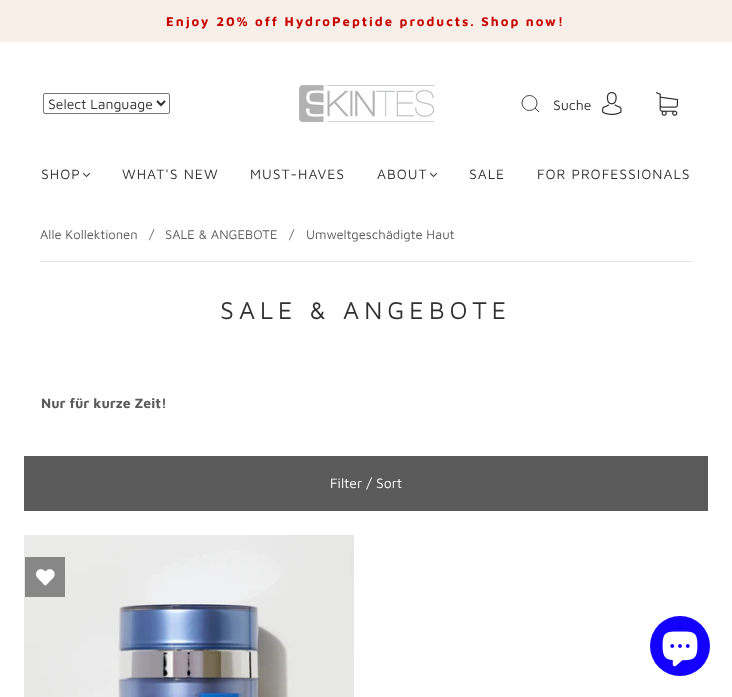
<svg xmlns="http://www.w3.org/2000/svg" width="732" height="697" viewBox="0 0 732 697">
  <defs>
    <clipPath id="clip1"><rect x="521" y="95" width="18" height="17"/></clipPath>
  </defs>
  <rect width="100%" height="100%" fill="#ffffff"/>
  <rect x="0" y="0" width="732" height="42" fill="#f7efe8"/>
  <text x="166" y="26" font-family="Maven Pro" font-size="13" font-weight="bold" letter-spacing="2" fill="#c70000">Enjoy 20% off HydroPeptide products. Shop now!</text>
  <rect x="43.5" y="93.5" width="126" height="20" rx="1.5" fill="none" stroke="#767676"/>
  <path d="M157 101L161 105L165 101" fill="none" stroke="#303030" stroke-width="2"/>
  <text x="48" y="109" font-family="Maven Pro" font-size="14" fill="#303030">Select Language</text>
  <image x="299" y="85" width="135" height="37" href="img1.png"/>
  <circle cx="529.5" cy="103" r="7.5" fill="none" stroke="#303030" stroke-width="0.9"/>
  <g clip-path="url(#clip1)">
    <path d="M535 108L540.5 113.5" fill="none" stroke="#303030" stroke-width="0.9"/>
  </g>
  <text x="553" y="110" font-family="Maven Pro" font-size="14" fill="#303030">Suche</text>
  <image x="602" y="92" width="20" height="23" href="img2.png"/>
  <image x="656" y="92" width="22" height="24" href="img3.png"/>
  <text x="41" y="179" font-family="Maven Pro" font-size="14" letter-spacing="1" fill="#303030">SHOP</text>
  <image x="83" y="173" width="7" height="4" href="img4.png"/>
  <text x="122" y="179" font-family="Maven Pro" font-size="14" letter-spacing="1" fill="#303030">WHAT'S NEW</text>
  <text x="250" y="179" font-family="Maven Pro" font-size="14" letter-spacing="1" fill="#303030">MUST-HAVES</text>
  <text x="377" y="179" font-family="Maven Pro" font-size="14" letter-spacing="1" fill="#303030">ABOUT</text>
  <image x="430" y="173" width="7" height="4" href="img4.png"/>
  <text x="469" y="179" font-family="Maven Pro" font-size="14" letter-spacing="1" fill="#303030">SALE</text>
  <text x="537" y="179" font-family="Maven Pro" font-size="14" letter-spacing="1" fill="#303030">FOR PROFESSIONALS</text>
  <rect x="40" y="261" width="652" height="1" fill="#e4e4e4"/>
  <text x="40" y="239" font-family="Maven Pro" font-size="13" fill="#5b5a5a">Alle Kollektionen</text>
  <text x="149" y="239" font-family="Maven Pro" font-size="13" fill="#5b5a5a">/</text>
  <text x="165" y="239" font-family="Maven Pro" font-size="13" fill="#5b5a5a">SALE &amp; ANGEBOTE</text>
  <text x="289" y="239" font-family="Maven Pro" font-size="13" fill="#5b5a5a">/</text>
  <text x="306" y="239" font-family="Maven Pro" font-size="13" fill="#5b5a5a">Umweltgeschädigte Haut</text>
  <text x="220" y="319" font-family="Maven Pro" font-size="25" letter-spacing="5" fill="#303030">SALE &amp; ANGEBOTE</text>
  <text x="41" y="408" font-family="Maven Pro" font-size="14" font-weight="bold" fill="#5b5a5a">Nur für kurze Zeit!</text>
  <rect x="24" y="456" width="684" height="55" fill="#5b5a5a"/>
  <text x="330" y="488" font-family="Maven Pro" font-size="14" fill="#ffffff">Filter / Sort</text>
  <image x="24" y="535" width="330" height="162" href="img5.png"/>
  <rect x="25" y="557" width="40" height="40" fill="#878787"/>
  <image x="36" y="569" width="19" height="17" href="img6.png"/>
  <circle cx="680" cy="646" r="30" fill="#1300ff"/>
  <image x="662" y="631" width="36" height="36" href="img7.png"/>
</svg>
